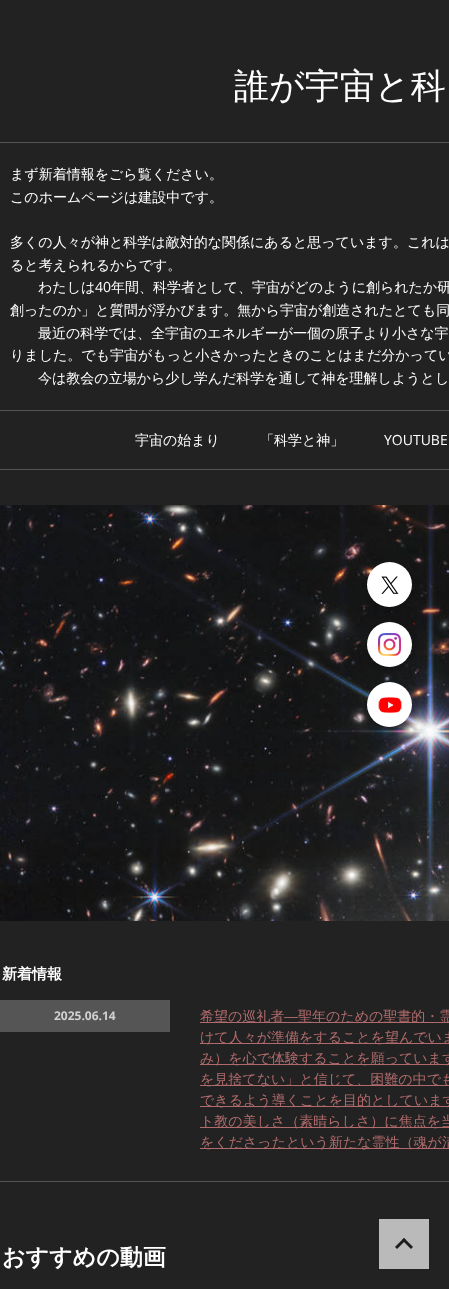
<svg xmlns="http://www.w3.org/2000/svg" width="449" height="1289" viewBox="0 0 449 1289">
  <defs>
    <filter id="blur1" x="-50%" y="-200%" width="200%" height="500%"><feGaussianBlur stdDeviation="3"/></filter>
  </defs>
  <rect width="100%" height="100%" fill="#222222"/>
  <rect x="0" y="142" width="449" height="1" fill="#555555"/>
  <text x="234" y="98" font-family="WenQuanYi Zen Hei" font-size="35" font-weight="500" fill="#ffffff">誰が宇宙と科</text>
  <rect x="0" y="410" width="449" height="1" fill="#555555"/>
  <text x="10" y="179" font-family="WenQuanYi Zen Hei" font-size="14" font-weight="500" fill="#ffffff">まず新着情報をごら覧ください。</text>
  <text x="10" y="202" font-family="WenQuanYi Zen Hei" font-size="14" font-weight="500" fill="#ffffff">このホームページは建設中です。</text>
  <text x="10" y="247" font-family="WenQuanYi Zen Hei" font-size="14" font-weight="500" fill="#ffffff">多くの人々が神と科学は敵対的な関係にあると思っています。これは</text>
  <text x="10" y="270" font-family="WenQuanYi Zen Hei" font-size="14" font-weight="500" fill="#ffffff">ると考えられるからです。</text>
  <text x="38" y="292" font-family="WenQuanYi Zen Hei" font-size="14" font-weight="500" fill="#ffffff">わたしは</text>
  <text x="95" y="292" font-family="Open Sans" font-size="14" fill="#ffffff">40</text>
  <text x="111" y="292" font-family="WenQuanYi Zen Hei" font-size="14" font-weight="500" fill="#ffffff">年間、科学者として、宇宙がどのように創られたか研</text>
  <text x="10" y="315" font-family="WenQuanYi Zen Hei" font-size="14" font-weight="500" fill="#ffffff">創ったのか」と質問が浮かびます。無から宇宙が創造されたとても同</text>
  <text x="38" y="338" font-family="WenQuanYi Zen Hei" font-size="14" font-weight="500" fill="#ffffff">最近の科学では、全宇宙のエネルギーが一個の原子より小さな宇</text>
  <text x="10" y="360" font-family="WenQuanYi Zen Hei" font-size="14" font-weight="500" fill="#ffffff">りました。でも宇宙がもっと小さかったときのことはまだ分かってい</text>
  <text x="38" y="383" font-family="WenQuanYi Zen Hei" font-size="14" font-weight="500" fill="#ffffff">今は教会の立場から少し学んだ科学を通して神を理解しようとし</text>
  <rect x="0" y="469" width="449" height="1" fill="#555555"/>
  <text x="135" y="445" font-family="WenQuanYi Zen Hei" font-size="14" font-weight="500" fill="#ffffff">宇宙の始まり</text>
  <text x="260" y="445" font-family="WenQuanYi Zen Hei" font-size="14" font-weight="500" fill="#ffffff">「科学と神」</text>
  <text x="384" y="445" font-family="Open Sans" font-size="14" fill="#ffffff">YOUTUBE</text>
  <rect x="0" y="1181" width="449" height="1" fill="#555555"/>
  <image x="0" y="505" width="449" height="416" href="img1.png"/>
  <text x="2" y="979" font-family="WenQuanYi Zen Hei" font-size="15" font-weight="bold" fill="#ffffff">新着情報</text>
  <rect x="0" y="1000" width="170" height="32" fill="#555555"/>
  <text x="54" y="1020" font-family="Open Sans" font-size="12" font-weight="bold" fill="#d2d2d2">2025.06.14</text>
  <rect x="200" y="1022" width="249" height="1" fill="#b16b6c"/>
  <text x="200" y="1021" font-family="WenQuanYi Zen Hei" font-size="14" font-weight="500" fill="#b16b6c">希望の巡礼者</text>
  <text x="284" y="1021" font-family="Liberation Sans" font-size="14" fill="#b16b6c">―</text>
  <text x="298" y="1021" word-spacing="-1" font-family="WenQuanYi Zen Hei" font-size="14" font-weight="500" fill="#b16b6c">聖年のための聖書的・霊</text>
  <rect x="200" y="1043" width="249" height="1" fill="#b16b6c"/>
  <text x="200" y="1042" font-family="WenQuanYi Zen Hei" font-size="14" font-weight="500" fill="#b16b6c">けて人々が準備をすることを望んでいま</text>
  <rect x="200" y="1064" width="249" height="1" fill="#b16b6c"/>
  <text x="200" y="1063" font-family="WenQuanYi Zen Hei" font-size="14" font-weight="500" fill="#b16b6c">み）を心で体験することを願っています</text>
  <rect x="200" y="1085" width="249" height="1" fill="#b16b6c"/>
  <text x="200" y="1084" font-family="WenQuanYi Zen Hei" font-size="14" font-weight="500" fill="#b16b6c">を見捨てない」と信じて、困難の中でも</text>
  <rect x="200" y="1106" width="249" height="1" fill="#b16b6c"/>
  <text x="200" y="1105" font-family="WenQuanYi Zen Hei" font-size="14" font-weight="500" fill="#b16b6c">できるよう導くことを目的としています</text>
  <rect x="200" y="1127" width="249" height="1" fill="#b16b6c"/>
  <text x="200" y="1126" font-family="WenQuanYi Zen Hei" font-size="14" font-weight="500" fill="#b16b6c">ト教の美しさ（素晴らしさ）に焦点を当</text>
  <rect x="200" y="1148" width="249" height="1" fill="#b16b6c"/>
  <text x="200" y="1147" font-family="WenQuanYi Zen Hei" font-size="14" font-weight="500" fill="#b16b6c">をくださったという新たな霊性（魂が清</text>
  <text x="2" y="1265" font-family="WenQuanYi Zen Hei" font-size="23" font-weight="bold" fill="#ffffff">おすすめの動画</text>
  <image x="379" y="1219" width="50" height="50" href="img2.png"/>
  <rect x="367" y="565" width="45" height="45" rx="22.5" fill="#000000" fill-opacity="0.2" filter="url(#blur1)"/>
  <circle cx="389.5" cy="584.5" r="22.5" fill="#ffffff"/>
  <image x="381" y="576" width="18" height="18" href="img3.png"/>
  <rect x="367" y="625" width="45" height="45" rx="22.5" fill="#000000" fill-opacity="0.2" filter="url(#blur1)"/>
  <circle cx="389.5" cy="644.5" r="22.5" fill="#ffffff"/>
  <image x="378" y="633" width="23" height="23" href="img4.png"/>
  <rect x="367" y="685" width="45" height="45" rx="22.5" fill="#000000" fill-opacity="0.2" filter="url(#blur1)"/>
  <circle cx="389.5" cy="704.5" r="22.5" fill="#ffffff"/>
  <image x="378" y="697" width="24" height="16" href="img5.png"/>
</svg>
